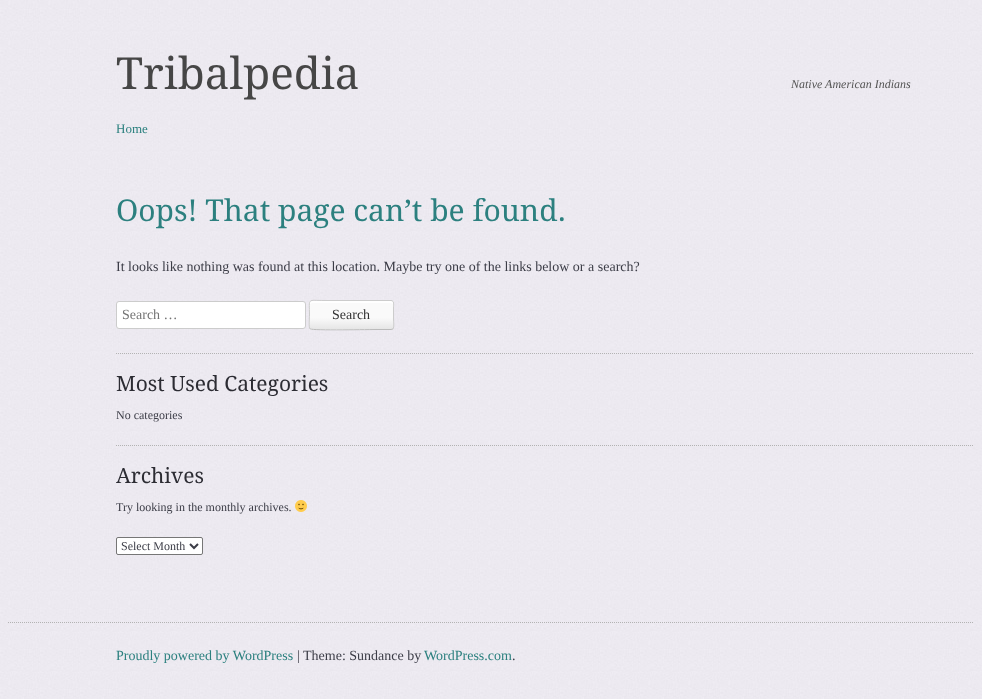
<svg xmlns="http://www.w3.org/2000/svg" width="982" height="699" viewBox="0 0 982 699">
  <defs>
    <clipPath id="clip1"><rect x="309" y="300" width="85" height="30" rx="3"/></clipPath>
    <linearGradient id="g1" gradientUnits="userSpaceOnUse" x1="352" y1="301" x2="352" y2="329"><stop offset="0.6" stop-color="#fafafa"/><stop offset="1" stop-color="#e6e6e6"/></linearGradient>
    <linearGradient id="g2" gradientUnits="userSpaceOnUse" x1="352" y1="329" x2="352" y2="357"><stop offset="0.6" stop-color="#fafafa"/><stop offset="1" stop-color="#e6e6e6"/></linearGradient>
  </defs>
  <rect width="100%" height="100%" fill="#ffffff"/>
  <image x="0" y="0" width="982" height="699" href="img1.png"/>
  <text x="116" y="89" font-family="Droid Serif" font-size="44" fill="#464646">Tribalpedia</text>
  <text x="791" y="88" font-family="Liberation Serif" font-size="12" font-style="italic" fill="#545454">Native American Indians</text>
  <text x="116" y="133" font-family="Liberation Serif" font-size="13" fill="#2c807f">Home</text>
  <text x="116" y="221" font-family="Droid Serif" font-size="30" fill="#2c807f">Oops! That page can’t be found.</text>
  <text x="116" y="271" font-family="Liberation Serif" font-size="14" fill="#3c3d47">It looks like nothing was found at this location. Maybe try one of the links below or a search?</text>
  <rect x="116.5" y="301.5" width="189" height="27" rx="2.5" fill="#ffffff" stroke="#cccccc"/>
  <text x="122" y="319" font-family="Liberation Serif" font-size="14" fill="#757575">Search …</text>
  <g clip-path="url(#clip1)">
    <rect x="309" y="301" width="85" height="28" fill="url(#g1)"/>
    <rect x="309" y="329" width="85" height="1" fill="url(#g2)"/>
  </g>
  <path d="M312 303H391C392 303 393 304 393 305V303C393 302 392 301 391 301H312C311 301 310 302 310 303V305C310 304 311 303 312 303Z" fill="#ffffff"/>
  <path d="M393 329L391 329.5H378C370.5 329.5 312.5 330.5 310.5 329H310" fill="none" stroke="#bbbbbb"/>
  <path d="M310 329C308.5 327 309.5 317.5 309.5 315C309.5 297.5 306.5 300.5 325 300.5H391C394.5 300.5 393.5 305 393.5 307V319C393.5 321 394.5 327 393 329" fill="none" stroke="#cccccc"/>
  <text x="332" y="319" font-family="Liberation Serif" font-size="14" fill="#323232">Search</text>
  <path d="M116 353.5H974" fill="none" stroke="#b3b3b3" stroke-dasharray="1 1"/>
  <text x="116" y="391" font-family="Droid Serif" font-size="21" fill="#2c2c33">Most Used Categories</text>
  <text x="116" y="419" font-family="Liberation Serif" font-size="12" fill="#3c3d47">No categories</text>
  <path d="M116 445.5H974" fill="none" stroke="#b3b3b3" stroke-dasharray="1 1"/>
  <text x="116" y="483" font-family="Droid Serif" font-size="21" fill="#2c2c33">Archives</text>
  <text x="116" y="511" font-family="Liberation Serif" font-size="12" fill="#3c3d47">Try looking in the monthly archives.</text>
  <image x="295" y="500" width="12" height="12" href="img2.png"/>
  <rect x="116.5" y="537.5" width="86" height="17" rx="1.5" fill="#ffffff" stroke="#767676"/>
  <path d="M190 544L194 548L198 544" fill="none" stroke="#3c3d47" stroke-width="2"/>
  <text x="121" y="550" font-family="Liberation Serif" font-size="12" fill="#3c3d47">Select Month</text>
  <path d="M8 622.5H974" fill="none" stroke="#b3b3b3" stroke-dasharray="1 1"/>
  <text x="116" y="660" font-family="Liberation Serif" font-size="14" fill="#2c807f">Proudly powered by WordPress</text>
  <text x="297" y="660" font-family="Liberation Serif" font-size="14" fill="#3c3d47">| Theme: Sundance by</text>
  <text x="424" y="660" font-family="Liberation Serif" font-size="14" fill="#2c807f">WordPress.com</text>
  <text x="512" y="660" font-family="Liberation Serif" font-size="14" fill="#3c3d47">.</text>
</svg>
